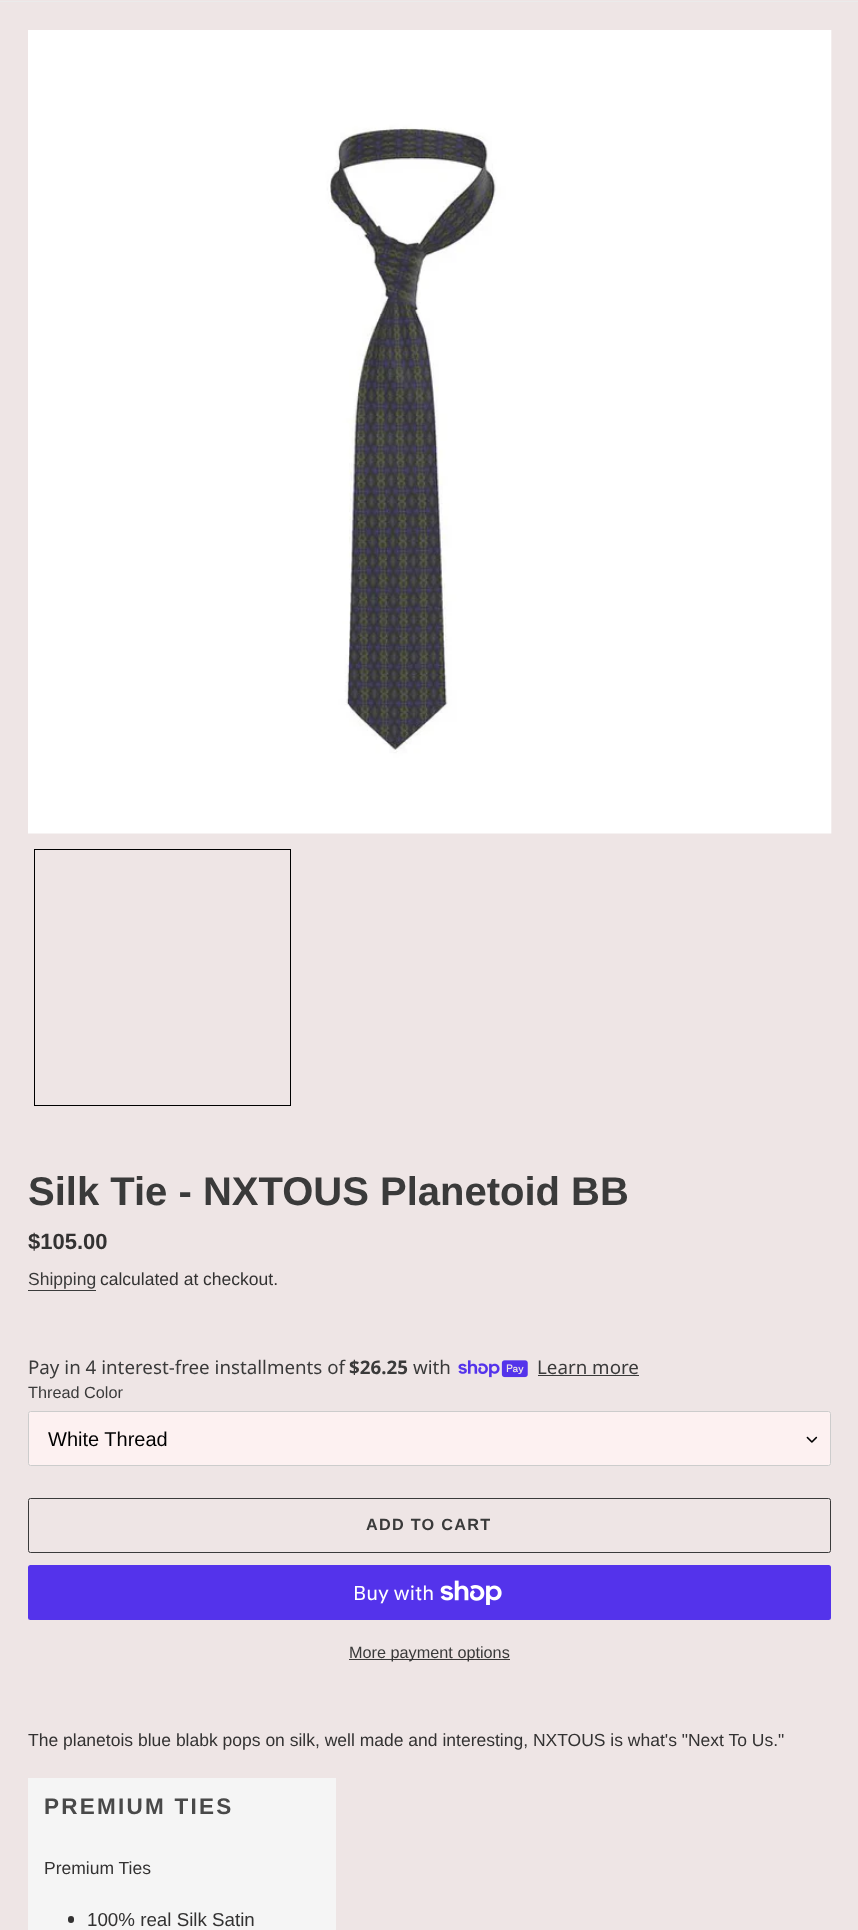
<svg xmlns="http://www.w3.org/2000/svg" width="858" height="1930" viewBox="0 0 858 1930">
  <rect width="100%" height="100%" fill="#eee5e5"/>
  <rect x="0" y="1" width="858" height="1" fill="#ebebeb"/>
  <image x="28" y="30" width="804" height="804" href="img1.png"/>
  <rect x="34.5" y="849.5" width="256" height="256" fill="none" stroke="#000000"/>
  <text x="28" y="1205" font-family="Liberation Sans" font-size="40" font-weight="bold" fill="#3a3a3a">Silk Tie - NXTOUS Planetoid BB</text>
  <text x="28" y="1249" font-family="Liberation Sans" font-size="22" font-weight="bold" fill="#333232">$105.00</text>
  <text x="28" y="1285" font-family="Liberation Sans" font-size="17.5" fill="#3a3a3a">Shipping</text>
  <rect x="28" y="1290" width="68" height="1" fill="#3a3a3a"/>
  <text x="100" y="1285" font-family="Liberation Sans" font-size="17.5" fill="#333232">calculated at checkout.</text>
  <text x="28" y="1374" font-family="Noto Sans" font-size="18.75" fill="#3a3a3a">Pay in 4 interest-free installments of</text>
  <text x="349" y="1374" font-family="Noto Sans" font-size="18.75" font-weight="bold" fill="#3a3a3a">$26.25</text>
  <text x="413" y="1374" font-family="Noto Sans" font-size="18.75" fill="#3a3a3a">with</text>
  <image x="458" y="1360" width="70" height="18" href="img2.png"/>
  <text x="537" y="1374" font-family="Noto Sans" font-size="18.75" fill="#3a3a3a">Learn more</text>
  <rect x="538" y="1375" width="101" height="1" fill="#3a3a3a"/>
  <text x="28" y="1398" font-family="Liberation Sans" font-size="16.25" fill="#3a3a3a">Thread Color</text>
  <rect x="28" y="1411" width="803" height="55" rx="2.5" fill="#fdf1f1"/>
  <image x="806" y="1436" width="12" height="7" href="img3.png"/>
  <rect x="28.5" y="1411.5" width="802" height="54" rx="2" fill="none" stroke="#cccccc"/>
  <text x="48" y="1446" font-family="Liberation Sans" font-size="20" fill="#000000">White Thread</text>
  <rect x="28.5" y="1498.5" width="802" height="54" rx="2" fill="none" stroke="#3a3a3a"/>
  <text x="366" y="1530" font-family="Liberation Sans" font-size="16.25" font-weight="bold" letter-spacing="1.25" fill="#3a3a3a">ADD TO CART</text>
  <rect x="28" y="1565" width="803" height="55" rx="2.5" fill="#5433eb"/>
  <text x="353" y="1600" font-family="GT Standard" font-size="20" fill="#ffffff">Buy with</text>
  <image x="440" y="1580" width="62" height="25" href="img4.png"/>
  <rect x="349" y="1659" width="161" height="1" fill="#3a3a3a"/>
  <text x="349" y="1658" font-family="Liberation Sans" font-size="16.25" fill="#3a3a3a">More payment options</text>
  <text x="28" y="1746" font-family="Liberation Sans" font-size="17.5" fill="#333232">The planetois blue blabk pops on silk, well made and interesting, NXTOUS is what's "Next To Us."</text>
  <rect x="28" y="1778" width="308" height="152" fill="#f5f5f5"/>
  <text x="44" y="1814" font-family="Liberation Sans" font-size="22.5" font-weight="bold" letter-spacing="2.25" fill="#494949">PREMIUM TIES</text>
  <text x="44" y="1874" font-family="Liberation Sans" font-size="17.5" fill="#333232">Premium Ties</text>
  <rect x="68" y="1916" width="6" height="7" rx="3" fill="#333232"/>
  <text x="87" y="1926" font-family="Liberation Sans" font-size="18.75" fill="#333232">100% real Silk Satin</text>
</svg>
